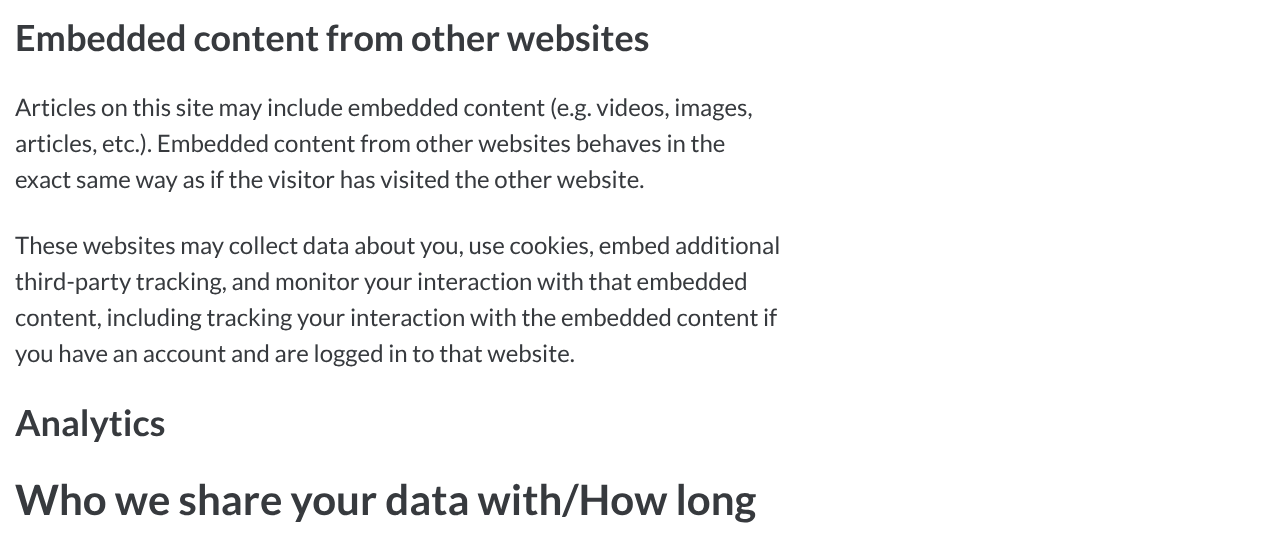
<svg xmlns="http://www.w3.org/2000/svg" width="1276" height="553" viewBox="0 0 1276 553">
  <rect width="100%" height="100%" fill="#ffffff"/>
  <text x="15" y="51" font-family="Lato" font-size="36" font-weight="bold" fill="#373a3e">Embedded content from other websites</text>
  <text x="15" y="116" font-family="Lato" font-size="24" fill="#373a3e">Articles on this site may include embedded content (e.g. videos, images,</text>
  <text x="15" y="152" font-family="Lato" font-size="24" fill="#373a3e">articles, etc.). Embedded content from other websites behaves in the</text>
  <text x="15" y="188" font-family="Lato" font-size="24" fill="#373a3e">exact same way as if the visitor has visited the other website.</text>
  <text x="15" y="254" font-family="Lato" font-size="24" fill="#373a3e">These websites may collect data about you, use cookies, embed additional</text>
  <text x="15" y="290" font-family="Lato" font-size="24" fill="#373a3e">third-party tracking, and monitor your interaction with that embedded</text>
  <text x="15" y="326" font-family="Lato" font-size="24" fill="#373a3e">content, including tracking your interaction with the embedded content if</text>
  <text x="15" y="362" font-family="Lato" font-size="24" fill="#373a3e">you have an account and are logged in to that website.</text>
  <text x="15" y="436" font-family="Lato" font-size="36" font-weight="bold" fill="#373a3e">Analytics</text>
  <text x="15" y="515" font-family="Lato" font-size="42" font-weight="bold" fill="#373a3e">Who we share your data with/How long</text>
</svg>
